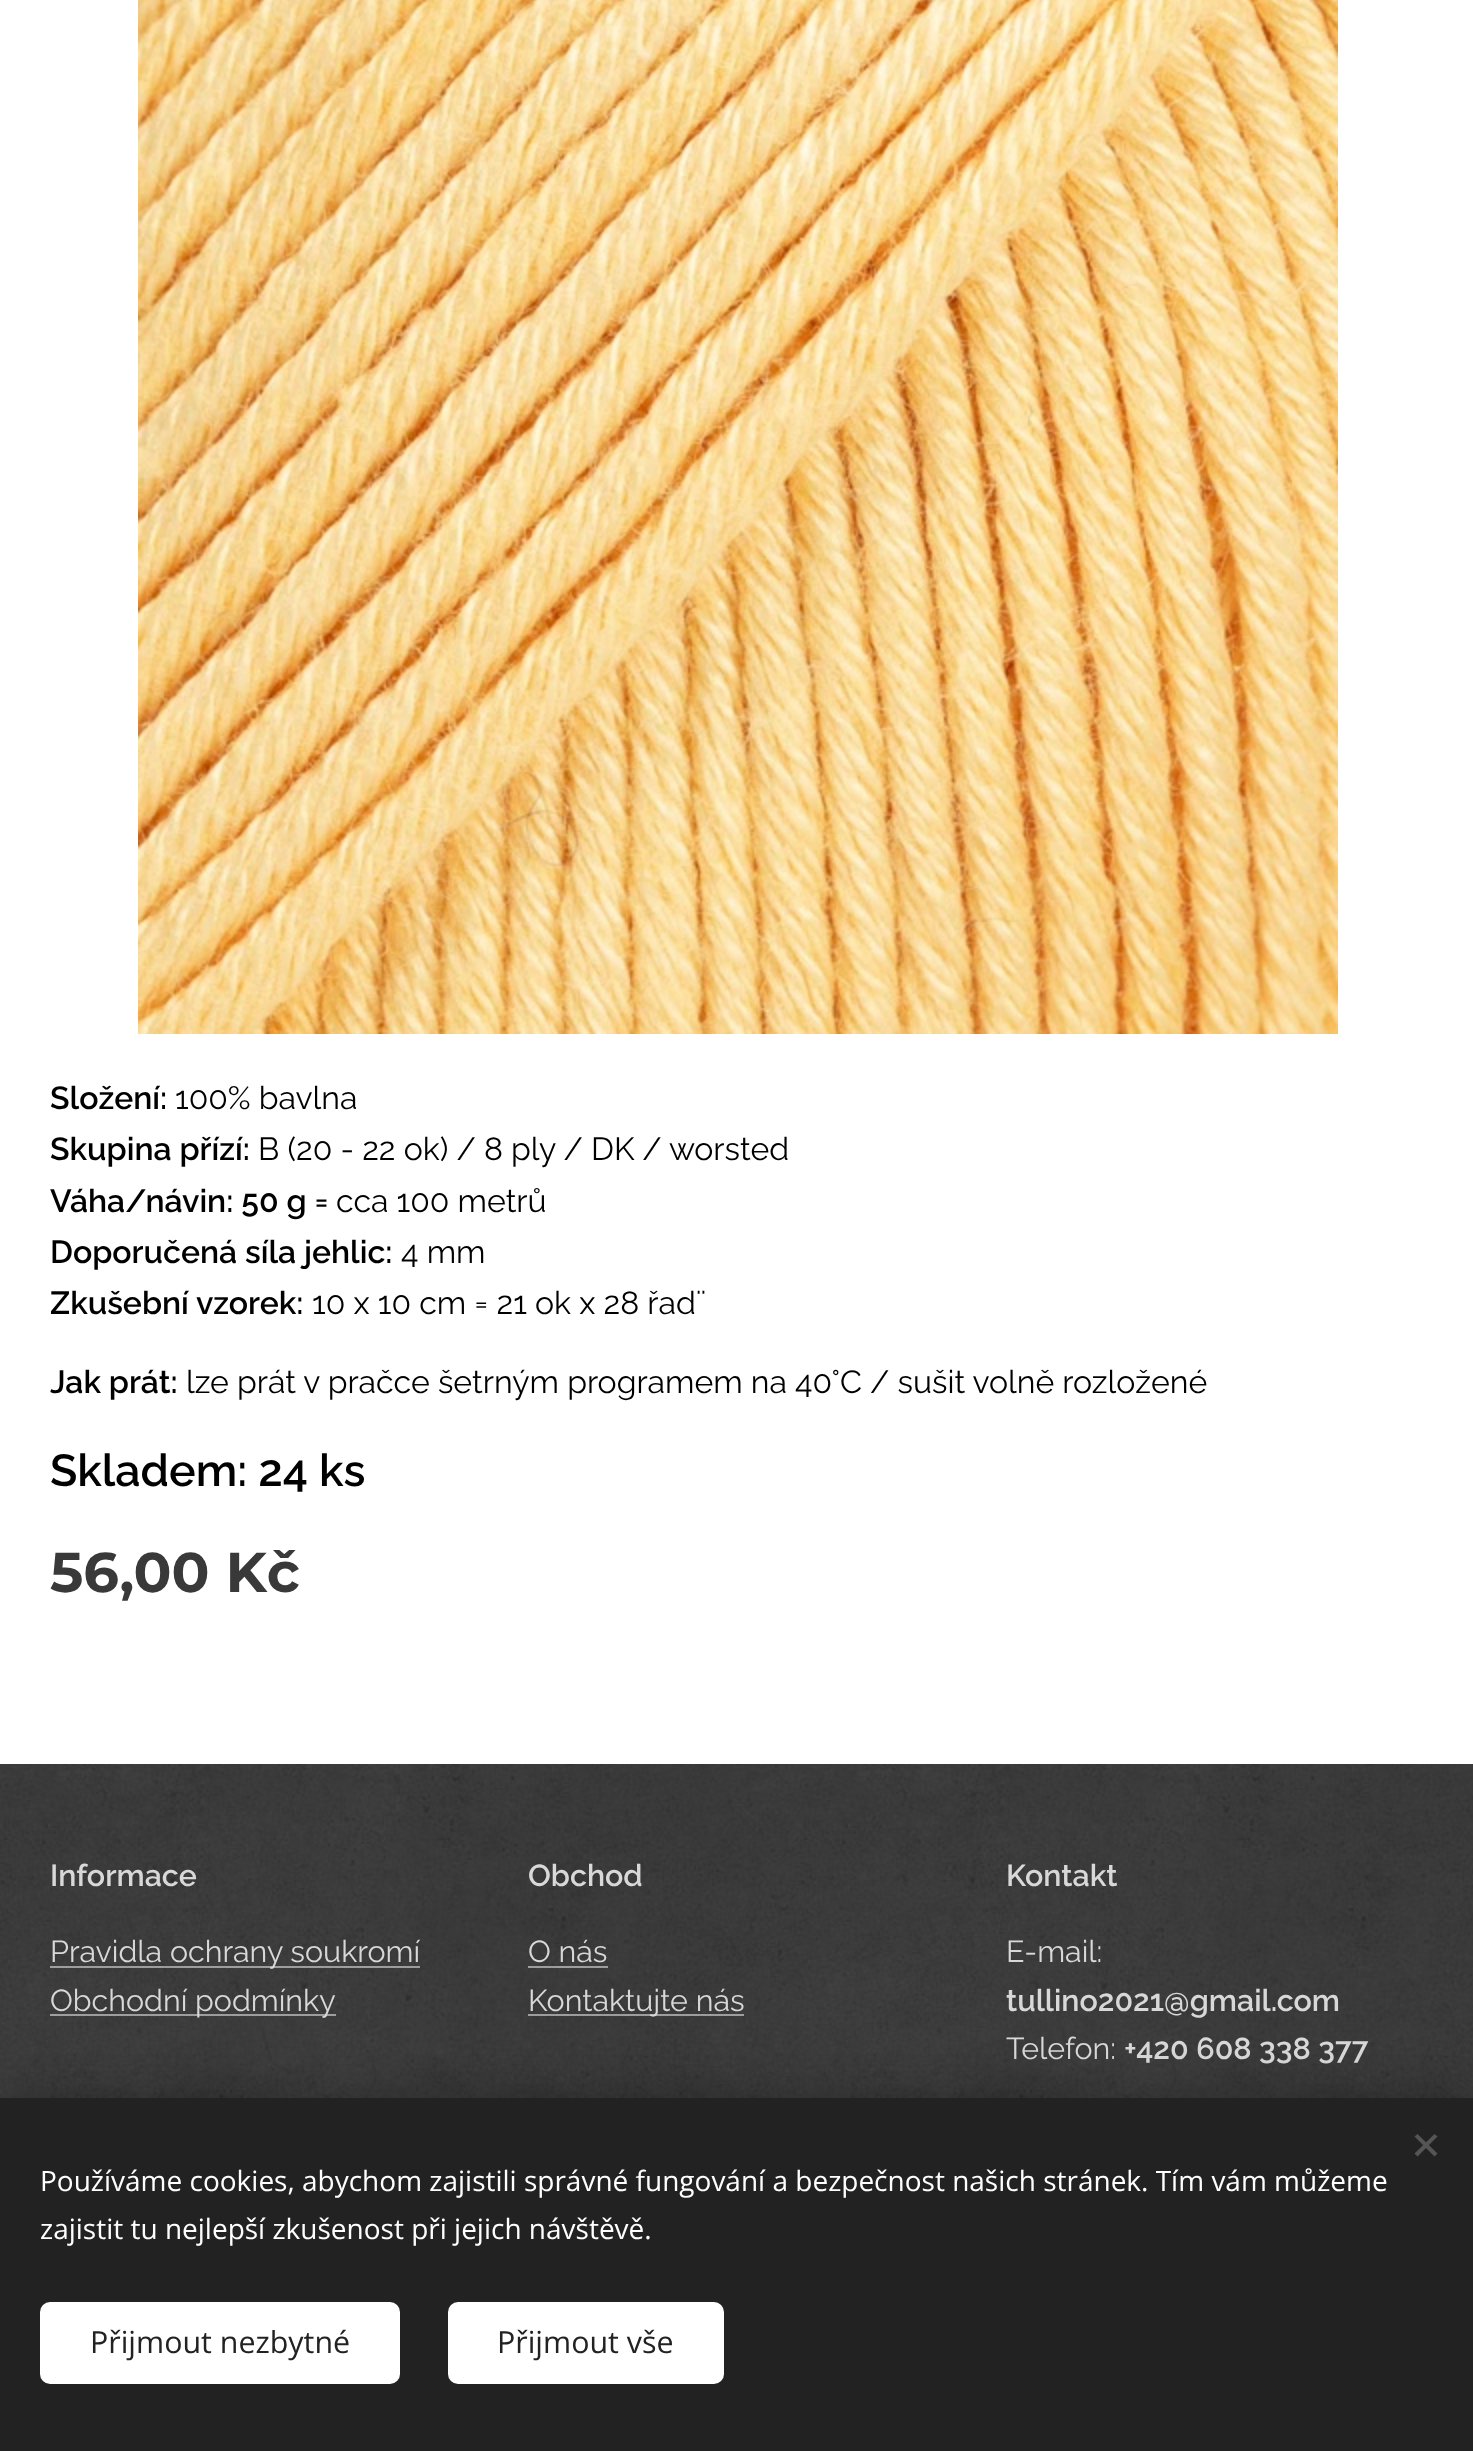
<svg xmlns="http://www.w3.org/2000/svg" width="1473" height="2451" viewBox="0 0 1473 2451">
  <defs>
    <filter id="blur1" x="-50%" y="-200%" width="200%" height="500%"><feGaussianBlur stdDeviation="25"/></filter>
  </defs>
  <rect width="100%" height="100%" fill="#ffffff"/>
  <image x="138" y="0" width="1200" height="1034" href="img1.png"/>
  <text x="50" y="1109" font-family="Raleway" font-size="32" font-weight="600" fill="#000000">Složení:</text>
  <text x="175" y="1109" font-family="Raleway" font-size="32" fill="#000000">100% bavlna</text>
  <text x="50" y="1160" font-family="Raleway" font-size="32" font-weight="600" fill="#000000">Skupina přízí:</text>
  <text x="258" y="1160" font-family="Raleway" font-size="32" fill="#000000">B (20 - 22 ok) / 8 ply / DK / worsted</text>
  <text x="50" y="1212" font-family="Raleway" font-size="32" font-weight="600" fill="#000000">Váha/návin: 50 g =</text>
  <text x="336" y="1212" font-family="Raleway" font-size="32" fill="#000000">cca 100 metrů</text>
  <text x="50" y="1263" font-family="Raleway" font-size="32" font-weight="600" fill="#000000">Doporučená síla jehlic:</text>
  <text x="401" y="1263" font-family="Raleway" font-size="32" fill="#000000">4 mm</text>
  <text x="50" y="1314" font-family="Raleway" font-size="32" font-weight="600" fill="#000000">Zkušební vzorek:</text>
  <text x="312" y="1314" font-family="Raleway" font-size="32" fill="#000000">10 x 10 cm = 21 ok x 28 řad¨</text>
  <text x="50" y="1393" font-family="Raleway" font-size="32" font-weight="600" fill="#000000">Jak prát:</text>
  <text x="186" y="1393" font-family="Raleway" font-size="32" fill="#000000">lze prát v pračce šetrným programem na 40°C / sušit volně rozložené</text>
  <text x="50" y="1486" font-family="Raleway" font-size="44.75" font-weight="600" fill="#000000">Skladem: 24 ks</text>
  <text x="50" y="1592" font-family="Montserrat" font-size="56" font-weight="bold" fill="#393939">56,00 Kč</text>
  <image x="0" y="1764" width="1473" height="334" href="img2.png"/>
  <text x="50" y="1886" font-family="Raleway" font-size="30.4" font-weight="600" fill="#d8d8d8">Informace</text>
  <rect x="50" y="1966" width="370" height="2" fill="#ffffff" fill-opacity="0.5"/>
  <text x="50" y="1962" font-family="Raleway" font-size="30.4" fill="#d8d8d8">Pravidla ochrany soukromí</text>
  <rect x="50" y="2014" width="286" height="2" fill="#ffffff" fill-opacity="0.5"/>
  <text x="50" y="2011" font-family="Raleway" font-size="30.4" fill="#d8d8d8">Obchodní podmínky</text>
  <text x="528" y="1886" font-family="Raleway" font-size="30.4" font-weight="600" fill="#d8d8d8">Obchod</text>
  <text x="528" y="1962" font-family="Raleway" font-size="30.4" fill="#d8d8d8">O nás</text>
  <rect x="528" y="1966" width="80" height="2" fill="#ffffff" fill-opacity="0.5"/>
  <rect x="528" y="2014" width="216" height="2" fill="#ffffff" fill-opacity="0.5"/>
  <text x="528" y="2011" font-family="Raleway" font-size="30.4" fill="#d8d8d8">Kontaktujte nás</text>
  <text x="1006" y="1886" font-family="Raleway" font-size="30.4" font-weight="600" fill="#d8d8d8">Kontakt</text>
  <text x="1006" y="1962" font-family="Raleway" font-size="30.4" fill="#d8d8d8">E-mail:</text>
  <text x="1006" y="2011" font-family="Raleway" font-size="30.4" font-weight="600" fill="#d8d8d8">tullino2021@gmail.com</text>
  <text x="1006" y="2059" font-family="Raleway" font-size="30.4" fill="#d8d8d8">Telefon:</text>
  <text x="1124" y="2059" font-family="Raleway" font-size="30.4" font-weight="600" fill="#d8d8d8">+420 608 338 377</text>
  <rect x="0" y="2098" width="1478" height="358" fill="#000000" fill-opacity="0.33" filter="url(#blur1)"/>
  <rect x="0" y="2098" width="1473" height="353" fill="#222222"/>
  <path d="M1414.5 2153.5L1434.5 2134L1437.5 2136.5L1417.5 2156.5Z" fill="#555555"/>
  <path d="M1417.5 2134L1437.5 2153.5L1434.5 2156.5L1414.5 2136.5Z" fill="#555555"/>
  <text x="40" y="2191" font-family="Open Sans" font-size="28" fill="#ffffff">Používáme cookies, abychom zajistili správné fungování a bezpečnost našich stránek. Tím vám můžeme</text>
  <text x="40" y="2239" font-family="Open Sans" font-size="28" fill="#ffffff">zajistit tu nejlepší zkušenost při jejich návštěvě.</text>
  <rect x="40" y="2302" width="360" height="82" rx="10" fill="#ffffff"/>
  <text x="90" y="2353" font-family="Open Sans" font-size="30.4" fill="#222222">Přijmout nezbytné</text>
  <rect x="448" y="2302" width="276" height="82" rx="10" fill="#ffffff"/>
  <text x="497" y="2353" font-family="Open Sans" font-size="30.4" fill="#222222">Přijmout vše</text>
</svg>
